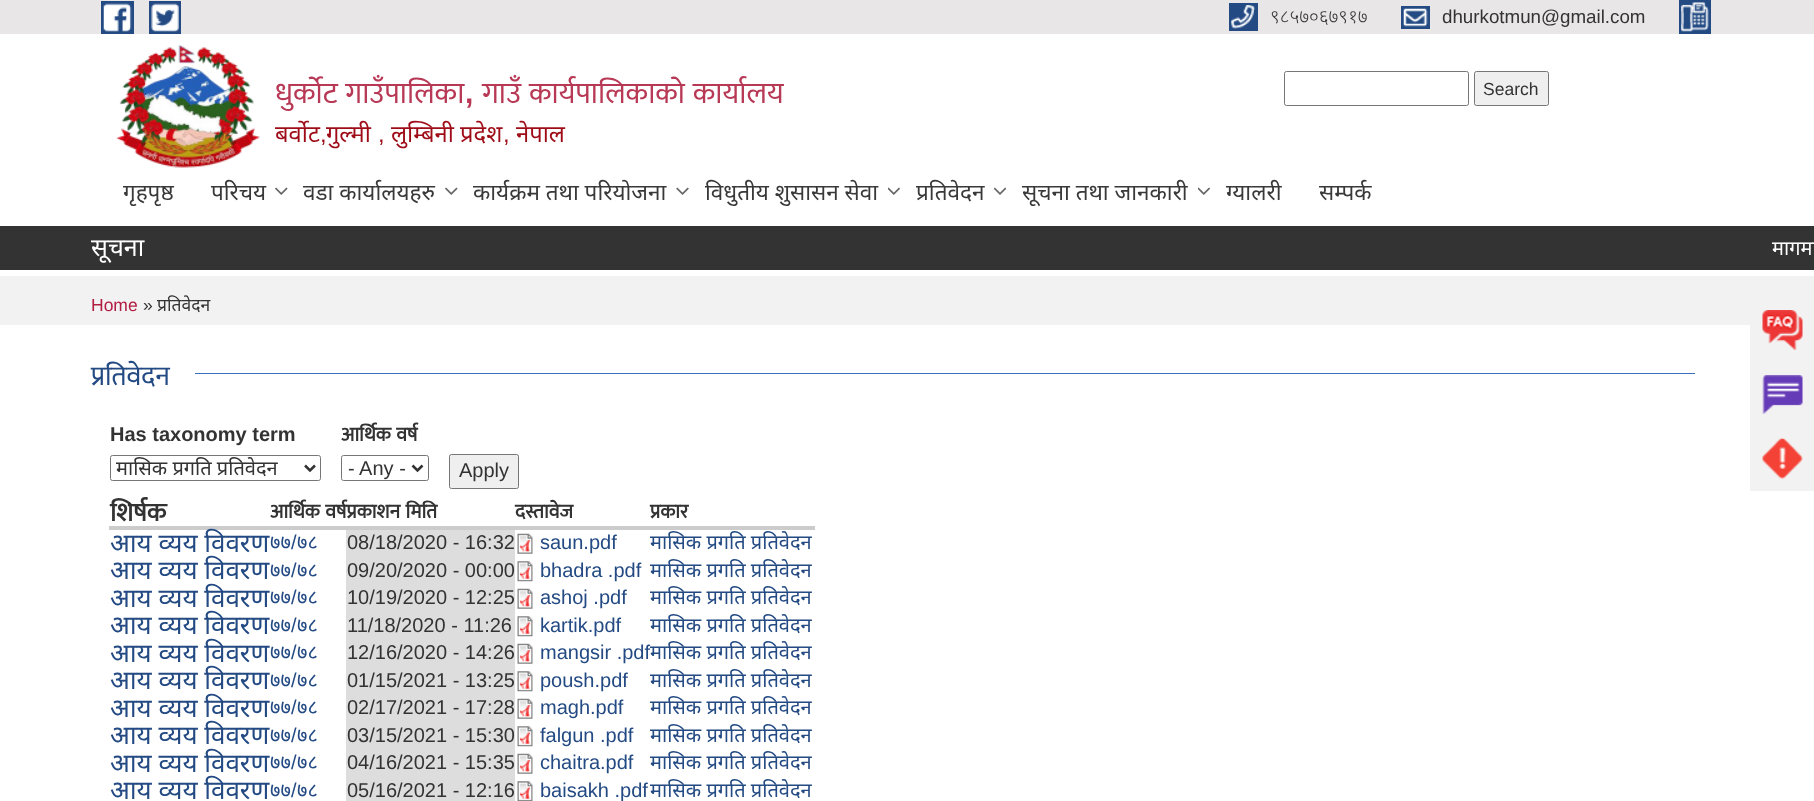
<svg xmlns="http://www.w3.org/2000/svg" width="1814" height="801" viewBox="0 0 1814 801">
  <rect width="100%" height="100%" fill="#ffffff"/>
  <rect x="0" y="0" width="1814" height="34" fill="#e8e6e6"/>
  <rect x="101" y="1" width="33" height="33" fill="#234a83"/>
  <rect x="149" y="1" width="32" height="33" fill="#234a83"/>
  <image x="103" y="3" width="29" height="29" href="img1.png"/>
  <image x="151" y="3" width="28" height="29" href="img2.png"/>
  <rect x="1679" y="0" width="32" height="34" fill="#234a83"/>
  <rect x="1229" y="3" width="29" height="28" fill="#234a83"/>
  <image x="1231" y="5" width="24" height="24" href="img3.png"/>
  <text x="1270" y="23" font-family="Noto Sans" font-size="18.75" font-weight="300" fill="#333333">९८५७०६७९१७</text>
  <rect x="1401" y="6" width="29" height="23" fill="#234a83"/>
  <image x="1403" y="8" width="25" height="19" href="img4.png"/>
  <text x="1442" y="23" font-family="Liberation Sans" font-size="18.75" fill="#333333">dhurkotmun@gmail.com</text>
  <image x="1681" y="2" width="28" height="30" href="img5.png"/>
  <image x="116" y="44" width="144" height="124" href="img6.png"/>
  <text x="275" y="103" word-spacing="1" font-family="Mukta" font-size="30" fill="#b83955">धुर्कोट गाउँपालिका</text>
  <text x="465" y="103" font-family="Liberation Sans" font-size="30" font-weight="bold" fill="#b83955">,</text>
  <text x="482" y="103" word-spacing="1" font-family="Mukta" font-size="30" fill="#b83955">गाउँ कार्यपालिकाको कार्यालय</text>
  <text x="275" y="142" font-family="Noto Sans" font-size="23.75" fill="#9e0c18">बर्वोट</text>
  <text x="320" y="142" font-family="Liberation Sans" font-size="23.75" fill="#9e0c18">,</text>
  <text x="326" y="142" font-family="Noto Sans" font-size="23.75" fill="#9e0c18">गुल्मी</text>
  <text x="378" y="142" font-family="Liberation Sans" font-size="23.75" fill="#9e0c18">,</text>
  <text x="391" y="142" font-family="Noto Sans" font-size="23.75" fill="#9e0c18">लुम्बिनी प्रदेश</text>
  <text x="503" y="142" font-family="Liberation Sans" font-size="23.75" fill="#9e0c18">,</text>
  <text x="516" y="142" font-family="Noto Sans" font-size="23.75" fill="#9e0c18">नेपाल</text>
  <rect x="1284.5" y="71.5" width="184" height="34" rx="2" fill="none" stroke="#767676"/>
  <rect x="1474.5" y="71.5" width="74" height="34" rx="2" fill="#efefef" stroke="#767676"/>
  <text x="1483" y="95" font-family="Liberation Sans" font-size="17.5" fill="#333333">Search</text>
  <text x="123" y="200" font-family="Noto Sans" font-size="22.5" fill="#393939">गृहपृष्ठ</text>
  <text x="211" y="200" font-family="Noto Sans" font-size="22.5" fill="#393939">परिचय</text>
  <image x="275" y="187" width="13" height="8" href="img7.png"/>
  <text x="303" y="200" font-family="Noto Sans" font-size="22.5" fill="#393939">वडा कार्यालयहरु</text>
  <image x="445" y="187" width="13" height="8" href="img7.png"/>
  <text x="473" y="200" font-family="Noto Sans" font-size="22.5" fill="#393939">कार्यक्रम तथा परियोजना</text>
  <image x="676" y="187" width="13" height="8" href="img8.png"/>
  <text x="705" y="200" font-family="Noto Sans" font-size="22.5" fill="#393939">विधुतीय शुसासन सेवा</text>
  <image x="888" y="187" width="12" height="8" href="img9.png"/>
  <text x="916" y="200" font-family="Noto Sans" font-size="22.5" fill="#393939">प्रतिवेदन</text>
  <image x="994" y="187" width="12" height="8" href="img10.png"/>
  <text x="1022" y="200" font-family="Noto Sans" font-size="22.5" fill="#393939">सूचना तथा जानकारी</text>
  <image x="1198" y="187" width="12" height="8" href="img9.png"/>
  <text x="1226" y="200" font-family="Noto Sans" font-size="22.5" fill="#393939">ग्यालरी</text>
  <text x="1319" y="200" font-family="Noto Sans" font-size="22.5" fill="#393939">सम्पर्क</text>
  <rect x="0" y="226" width="1814" height="44" fill="#333333"/>
  <text x="91" y="256" font-family="Noto Sans" font-size="25" fill="#ffffff">सूचना</text>
  <text x="1772" y="255" font-family="Noto Sans" font-size="20" fill="#ffffff">मागमा</text>
  <rect x="0" y="276" width="1814" height="49" fill="#f2f2f2"/>
  <text x="91" y="311" font-family="Liberation Sans" font-size="17.5" fill="#b21c42">Home</text>
  <text x="143" y="311" font-family="Liberation Sans" font-size="17.5" fill="#333333">»</text>
  <text x="157" y="311" font-family="Noto Sans" font-size="17.5" fill="#333333">प्रतिवेदन</text>
  <text x="91" y="385" font-family="Mukta" font-size="27.5" fill="#234a83">प्रतिवेदन</text>
  <rect x="195" y="373" width="1500" height="1" fill="#376fc2"/>
  <text x="110" y="441" font-family="Liberation Sans" font-size="20" font-weight="bold" fill="#333333">Has taxonomy term</text>
  <rect x="110.5" y="455.5" width="210" height="25" rx="2" fill="none" stroke="#767676"/>
  <path d="M305 465.5L310 470.5L315 465.5" fill="none" stroke="#333333" stroke-width="2.5"/>
  <text x="116" y="475" font-family="Noto Sans" font-size="20" fill="#333333">मासिक प्रगति प्रतिवेदन</text>
  <text x="341" y="441" word-spacing="1" font-family="Mukta" font-size="20" font-weight="bold" fill="#333333">आर्थिक वर्ष</text>
  <rect x="341.5" y="455.5" width="87" height="25" rx="2" fill="none" stroke="#767676"/>
  <path d="M412.5 465.5L417.5 470.5L422.5 465.5" fill="none" stroke="#333333" stroke-width="2.5"/>
  <text x="348" y="475" font-family="Liberation Sans" font-size="20" fill="#333333">- Any -</text>
  <rect x="449.5" y="454.5" width="69" height="34" rx="2" fill="#efefef" stroke="#767676"/>
  <text x="459" y="477" font-family="Liberation Sans" font-size="20" fill="#333333">Apply</text>
  <text x="110" y="521" font-family="Mukta" font-size="26" font-weight="bold" fill="#333333">शिर्षक</text>
  <text x="270" y="518" word-spacing="1" font-family="Mukta" font-size="20" font-weight="bold" fill="#333333">आर्थिक वर्षप्रकाशन मिति</text>
  <text x="515" y="518" font-family="Mukta" font-size="20" font-weight="bold" fill="#333333">दस्तावेज</text>
  <rect x="109" y="526" width="706" height="4" fill="#cccccc"/>
  <text x="650" y="518" font-family="Mukta" font-size="20" font-weight="bold" fill="#333333">प्रकार</text>
  <text x="110" y="552" font-family="Noto Sans" font-size="26" fill="#234a83">आय व्यय विवरण</text>
  <text x="270" y="549" font-family="Noto Sans" font-size="20" fill="#234a83">७७</text>
  <text x="291" y="549" font-family="Liberation Sans" font-size="20" fill="#234a83">/</text>
  <text x="297" y="549" font-family="Noto Sans" font-size="20" fill="#234a83">७८</text>
  <rect x="346" y="530" width="169" height="271" fill="#dddddd"/>
  <text x="347" y="549" font-family="Liberation Sans" font-size="20" fill="#333333">08/18/2020 - 16:32</text>
  <image x="517" y="533" width="16" height="21" href="img11.png"/>
  <text x="540" y="549" font-family="Liberation Sans" font-size="20" fill="#234a83">saun.pdf</text>
  <text x="650" y="549" font-family="Noto Sans" font-size="20" fill="#234a83">मासिक प्रगति प्रतिवेदन</text>
  <text x="110" y="579" font-family="Noto Sans" font-size="26" fill="#234a83">आय व्यय विवरण</text>
  <text x="270" y="577" font-family="Noto Sans" font-size="20" fill="#234a83">७७</text>
  <text x="291" y="577" font-family="Liberation Sans" font-size="20" fill="#234a83">/</text>
  <text x="297" y="577" font-family="Noto Sans" font-size="20" fill="#234a83">७८</text>
  <text x="347" y="577" font-family="Liberation Sans" font-size="20" fill="#333333">09/20/2020 - 00:00</text>
  <image x="517" y="561" width="16" height="21" href="img12.png"/>
  <text x="540" y="577" font-family="Liberation Sans" font-size="20" fill="#234a83">bhadra .pdf</text>
  <text x="650" y="577" font-family="Noto Sans" font-size="20" fill="#234a83">मासिक प्रगति प्रतिवेदन</text>
  <text x="110" y="607" font-family="Noto Sans" font-size="26" fill="#234a83">आय व्यय विवरण</text>
  <text x="270" y="604" font-family="Noto Sans" font-size="20" fill="#234a83">७७</text>
  <text x="291" y="604" font-family="Liberation Sans" font-size="20" fill="#234a83">/</text>
  <text x="297" y="604" font-family="Noto Sans" font-size="20" fill="#234a83">७८</text>
  <text x="347" y="604" font-family="Liberation Sans" font-size="20" fill="#333333">10/19/2020 - 12:25</text>
  <image x="517" y="588" width="16" height="21" href="img11.png"/>
  <text x="540" y="604" font-family="Liberation Sans" font-size="20" fill="#234a83">ashoj .pdf</text>
  <text x="650" y="604" font-family="Noto Sans" font-size="20" fill="#234a83">मासिक प्रगति प्रतिवेदन</text>
  <text x="110" y="634" font-family="Noto Sans" font-size="26" fill="#234a83">आय व्यय विवरण</text>
  <text x="270" y="632" font-family="Noto Sans" font-size="20" fill="#234a83">७७</text>
  <text x="291" y="632" font-family="Liberation Sans" font-size="20" fill="#234a83">/</text>
  <text x="297" y="632" font-family="Noto Sans" font-size="20" fill="#234a83">७८</text>
  <text x="347" y="632" font-family="Liberation Sans" font-size="20" fill="#333333">11/18/2020 - 11:26</text>
  <image x="517" y="616" width="16" height="21" href="img12.png"/>
  <text x="540" y="632" font-family="Liberation Sans" font-size="20" fill="#234a83">kartik.pdf</text>
  <text x="650" y="632" font-family="Noto Sans" font-size="20" fill="#234a83">मासिक प्रगति प्रतिवेदन</text>
  <text x="110" y="662" font-family="Noto Sans" font-size="26" fill="#234a83">आय व्यय विवरण</text>
  <text x="270" y="659" font-family="Noto Sans" font-size="20" fill="#234a83">७७</text>
  <text x="291" y="659" font-family="Liberation Sans" font-size="20" fill="#234a83">/</text>
  <text x="297" y="659" font-family="Noto Sans" font-size="20" fill="#234a83">७८</text>
  <text x="347" y="659" font-family="Liberation Sans" font-size="20" fill="#333333">12/16/2020 - 14:26</text>
  <image x="517" y="643" width="16" height="21" href="img11.png"/>
  <text x="540" y="659" font-family="Liberation Sans" font-size="20" fill="#234a83">mangsir .pdf</text>
  <text x="650" y="659" font-family="Noto Sans" font-size="20" fill="#234a83">मासिक प्रगति प्रतिवेदन</text>
  <text x="110" y="689" font-family="Noto Sans" font-size="26" fill="#234a83">आय व्यय विवरण</text>
  <text x="270" y="687" font-family="Noto Sans" font-size="20" fill="#234a83">७७</text>
  <text x="291" y="687" font-family="Liberation Sans" font-size="20" fill="#234a83">/</text>
  <text x="297" y="687" font-family="Noto Sans" font-size="20" fill="#234a83">७८</text>
  <text x="347" y="687" font-family="Liberation Sans" font-size="20" fill="#333333">01/15/2021 - 13:25</text>
  <image x="517" y="671" width="16" height="21" href="img12.png"/>
  <text x="540" y="687" font-family="Liberation Sans" font-size="20" fill="#234a83">poush.pdf</text>
  <text x="650" y="687" font-family="Noto Sans" font-size="20" fill="#234a83">मासिक प्रगति प्रतिवेदन</text>
  <text x="110" y="717" font-family="Noto Sans" font-size="26" fill="#234a83">आय व्यय विवरण</text>
  <text x="270" y="714" font-family="Noto Sans" font-size="20" fill="#234a83">७७</text>
  <text x="291" y="714" font-family="Liberation Sans" font-size="20" fill="#234a83">/</text>
  <text x="297" y="714" font-family="Noto Sans" font-size="20" fill="#234a83">७८</text>
  <text x="347" y="714" font-family="Liberation Sans" font-size="20" fill="#333333">02/17/2021 - 17:28</text>
  <image x="517" y="698" width="16" height="21" href="img11.png"/>
  <text x="540" y="714" font-family="Liberation Sans" font-size="20" fill="#234a83">magh.pdf</text>
  <text x="650" y="714" font-family="Noto Sans" font-size="20" fill="#234a83">मासिक प्रगति प्रतिवेदन</text>
  <text x="110" y="744" font-family="Noto Sans" font-size="26" fill="#234a83">आय व्यय विवरण</text>
  <text x="270" y="742" font-family="Noto Sans" font-size="20" fill="#234a83">७७</text>
  <text x="291" y="742" font-family="Liberation Sans" font-size="20" fill="#234a83">/</text>
  <text x="297" y="742" font-family="Noto Sans" font-size="20" fill="#234a83">७८</text>
  <text x="347" y="742" font-family="Liberation Sans" font-size="20" fill="#333333">03/15/2021 - 15:30</text>
  <image x="517" y="726" width="16" height="21" href="img12.png"/>
  <text x="540" y="742" font-family="Liberation Sans" font-size="20" fill="#234a83">falgun .pdf</text>
  <text x="650" y="742" font-family="Noto Sans" font-size="20" fill="#234a83">मासिक प्रगति प्रतिवेदन</text>
  <text x="110" y="772" font-family="Noto Sans" font-size="26" fill="#234a83">आय व्यय विवरण</text>
  <text x="270" y="769" font-family="Noto Sans" font-size="20" fill="#234a83">७७</text>
  <text x="291" y="769" font-family="Liberation Sans" font-size="20" fill="#234a83">/</text>
  <text x="297" y="769" font-family="Noto Sans" font-size="20" fill="#234a83">७८</text>
  <text x="347" y="769" font-family="Liberation Sans" font-size="20" fill="#333333">04/16/2021 - 15:35</text>
  <image x="517" y="753" width="16" height="21" href="img11.png"/>
  <text x="540" y="769" font-family="Liberation Sans" font-size="20" fill="#234a83">chaitra.pdf</text>
  <text x="650" y="769" font-family="Noto Sans" font-size="20" fill="#234a83">मासिक प्रगति प्रतिवेदन</text>
  <text x="110" y="799" font-family="Noto Sans" font-size="26" fill="#234a83">आय व्यय विवरण</text>
  <text x="270" y="797" font-family="Noto Sans" font-size="20" fill="#234a83">७७</text>
  <text x="291" y="797" font-family="Liberation Sans" font-size="20" fill="#234a83">/</text>
  <text x="297" y="797" font-family="Noto Sans" font-size="20" fill="#234a83">७८</text>
  <text x="347" y="797" font-family="Liberation Sans" font-size="20" fill="#333333">05/16/2021 - 12:16</text>
  <image x="517" y="781" width="16" height="20" href="img13.png"/>
  <text x="540" y="797" font-family="Liberation Sans" font-size="20" fill="#234a83">baisakh .pdf</text>
  <text x="650" y="797" font-family="Noto Sans" font-size="20" fill="#234a83">मासिक प्रगति प्रतिवेदन</text>
  <rect x="1750" y="325" width="64" height="166" fill="#f2f2f2"/>
  <image x="1762" y="310" width="41" height="40" href="img14.png"/>
  <image x="1762" y="375" width="41" height="39" href="img15.png"/>
  <image x="1762" y="438" width="41" height="41" href="img16.png"/>
</svg>
